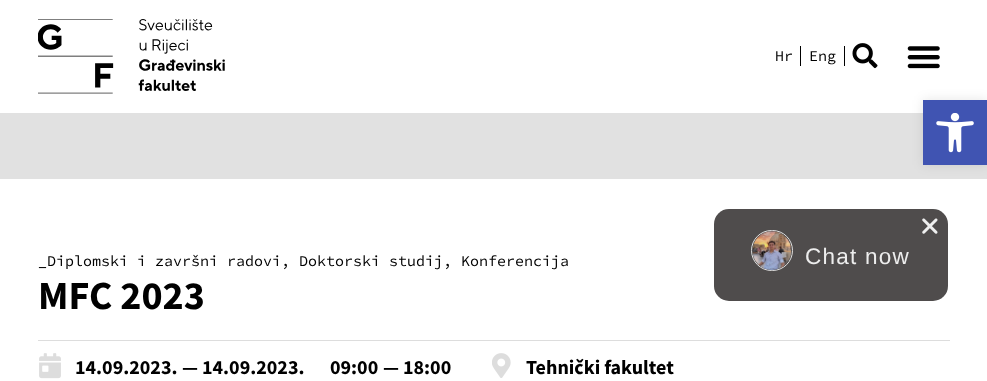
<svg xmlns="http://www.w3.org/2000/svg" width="987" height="381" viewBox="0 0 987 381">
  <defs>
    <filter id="blur1" x="-50%" y="-200%" width="200%" height="500%"><feGaussianBlur stdDeviation="6"/></filter>
  </defs>
  <rect width="100%" height="100%" fill="#ffffff"/>
  <image x="38" y="19" width="187" height="75" href="img1.png"/>
  <rect x="800" y="46" width="1" height="20" fill="#000000"/>
  <text x="775" y="61" font-family="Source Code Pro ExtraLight" font-size="15" fill="#000000">Hr</text>
  <rect x="844" y="46" width="1" height="20" fill="#000000"/>
  <text x="809" y="61" font-family="Source Code Pro ExtraLight" font-size="15" fill="#000000">Eng</text>
  <image x="852" y="43" width="26" height="26" href="img2.png"/>
  <image x="907" y="46" width="33" height="23" href="img3.png"/>
  <rect x="0" y="113" width="987" height="66" fill="#e1e1e1"/>
  <rect x="923" y="100" width="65" height="65" fill="#000000" fill-opacity="0.1" filter="url(#blur1)"/>
  <rect x="923" y="100" width="64" height="65" fill="#4054b2"/>
  <image x="936" y="113" width="38" height="40" href="img4.png"/>
  <text x="38" y="266" font-family="Source Code Pro ExtraLight" font-size="15" fill="#000000">_Diplomski i završni radovi, Doktorski studij, Konferencija</text>
  <text x="38" y="309" font-family="Source Sans Pro" font-size="40" font-weight="bold" fill="#000000">MFC 2023</text>
  <rect x="38" y="340" width="912" height="1" fill="#dddddd"/>
  <image x="39" y="353" width="22" height="26" href="img5.png"/>
  <text x="75" y="374" font-family="Source Sans Pro" font-size="20" font-weight="bold" fill="#000000">14.09.2023.</text>
  <text x="182" y="374" font-family="Source Sans Pro" font-size="20" font-weight="bold" fill="#000000">— 14.09.2023.</text>
  <text x="330" y="374" font-family="Source Sans Pro" font-size="20" font-weight="bold" fill="#000000">09:00</text>
  <text x="383" y="374" font-family="Source Sans Pro" font-size="20" font-weight="bold" fill="#000000">— 18:00</text>
  <image x="492" y="353" width="19" height="25" href="img6.png"/>
  <text x="526" y="374" font-family="Source Sans Pro" font-size="20" font-weight="bold" fill="#000000">Tehnički fakultet</text>
  <rect x="714" y="209" width="234" height="92" rx="15" fill="#4f4c4c"/>
  <image x="922" y="218" width="16" height="16" href="img7.png"/>
  <rect x="751.5" y="230.5" width="41" height="40" rx="20" fill="none" stroke="#dfdfdf"/>
  <image x="752" y="231" width="40" height="39" href="img8.png"/>
  <text x="805" y="264" font-family="Liberation Sans" font-size="22.5" letter-spacing="1.25" fill="#ededed">Chat now</text>
</svg>
